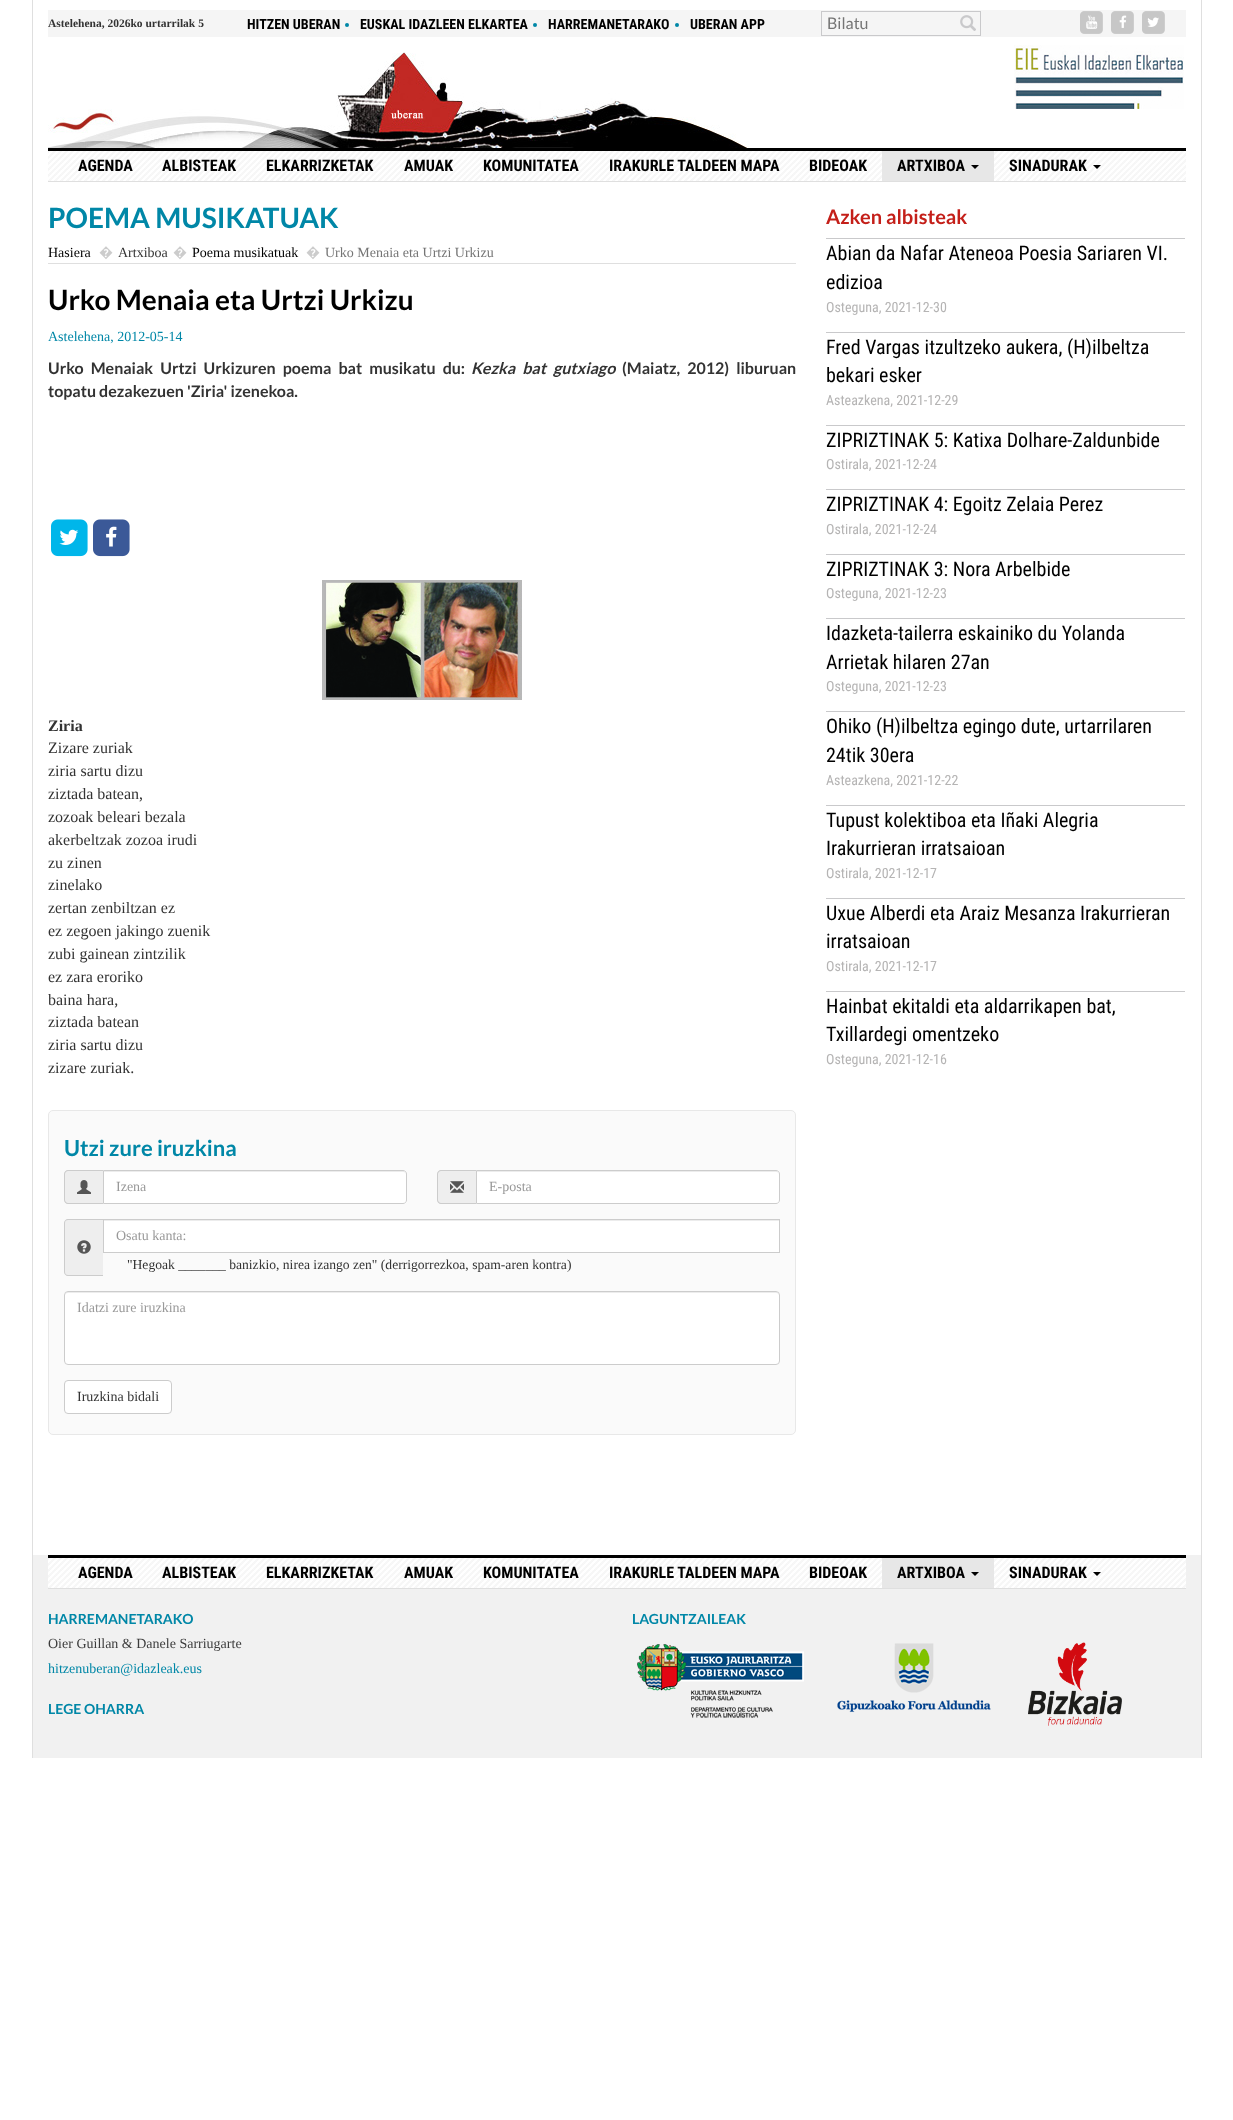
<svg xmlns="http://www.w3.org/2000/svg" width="1233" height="2120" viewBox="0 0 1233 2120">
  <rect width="100%" height="100%" fill="#ffffff"/>
  <rect x="1201" y="0" width="1" height="148" fill="#dfdfdf"/>
  <rect x="32" y="0" width="1" height="148" fill="#dfdfdf"/>
  <rect x="48" y="10" width="1138" height="27" fill="#f5f5f5"/>
  <text x="48" y="27" font-family="Liberation Serif" font-size="11.5" font-weight="bold" fill="#333333">Astelehena, 2026ko urtarrilak 5</text>
  <text x="247" y="29" font-family="Roboto Condensed" font-size="14" font-weight="bold" fill="#000000">HITZEN UBERAN</text>
  <circle cx="347" cy="25" r="2" fill="#0087a7"/>
  <text x="360" y="29" font-family="Roboto Condensed" font-size="14" font-weight="bold" fill="#000000">EUSKAL IDAZLEEN ELKARTEA</text>
  <circle cx="535" cy="25" r="2" fill="#0087a7"/>
  <text x="548" y="29" font-family="Roboto Condensed" font-size="14" font-weight="bold" fill="#000000">HARREMANETARAKO</text>
  <circle cx="677" cy="25" r="2" fill="#0087a7"/>
  <text x="690" y="29" font-family="Roboto Condensed" font-size="14" font-weight="bold" fill="#000000">UBERAN APP</text>
  <rect x="821.5" y="11.5" width="159" height="24" fill="none" stroke="#c9c9cb"/>
  <text x="827" y="29" font-family="Lato" font-size="16" fill="#757575">Bilatu</text>
  <image x="960" y="15" width="16" height="16" href="img1.png"/>
  <image x="1080" y="11" width="23" height="23" href="img2.png"/>
  <image x="1086" y="15" width="12" height="14" href="img3.png"/>
  <image x="1111" y="11" width="23" height="23" href="img2.png"/>
  <image x="1119" y="15" width="8" height="13" href="img4.png"/>
  <image x="1142" y="11" width="23" height="23" href="img2.png"/>
  <image x="1147" y="17" width="12" height="10" href="img5.png"/>
  <image x="48" y="52" width="701" height="96" href="img6.png"/>
  <image x="1014" y="45" width="170" height="64" href="img7.png"/>
  <image x="48" y="151" width="1138" height="30" href="img8.png"/>
  <rect x="48" y="148" width="1138" height="3" fill="#000000"/>
  <rect x="48" y="181" width="1138" height="1" fill="#dfdfdf"/>
  <text x="78" y="171" font-family="Roboto Condensed" font-size="16" font-weight="bold" fill="#000000">AGENDA</text>
  <text x="162" y="171" font-family="Roboto Condensed" font-size="16" font-weight="bold" fill="#000000">ALBISTEAK</text>
  <text x="266" y="171" font-family="Roboto Condensed" font-size="16" font-weight="bold" fill="#000000">ELKARRIZKETAK</text>
  <text x="404" y="171" font-family="Roboto Condensed" font-size="16" font-weight="bold" fill="#000000">AMUAK</text>
  <text x="483" y="171" font-family="Roboto Condensed" font-size="16" font-weight="bold" fill="#000000">KOMUNITATEA</text>
  <text x="609" y="171" font-family="Roboto Condensed" font-size="16" font-weight="bold" fill="#000000">IRAKURLE TALDEEN MAPA</text>
  <text x="809" y="171" font-family="Roboto Condensed" font-size="16" font-weight="bold" fill="#000000">BIDEOAK</text>
  <rect x="882" y="151" width="112" height="30" fill="#e7e7e7"/>
  <text x="897" y="171" font-family="Roboto Condensed" font-size="16" font-weight="bold" fill="#000000">ARTXIBOA</text>
  <path d="M971 165H979L975 169Z" fill="#000000"/>
  <text x="1009" y="171" font-family="Roboto Condensed" font-size="16" font-weight="bold" fill="#000000">SINADURAK</text>
  <path d="M1093 165H1101L1097 169Z" fill="#000000"/>
  <rect x="1201" y="148" width="1" height="1407" fill="#dfdfdf"/>
  <rect x="32" y="148" width="1" height="1407" fill="#dfdfdf"/>
  <text x="48" y="228" font-family="Lato" font-size="28" font-weight="bold" fill="#0087a7">POEMA MUSIKATUAK</text>
  <rect x="48" y="263" width="748" height="1" fill="#dfdfdf"/>
  <text x="48" y="257" font-family="Liberation Serif" font-size="14" fill="#000000">Hasiera</text>
  <text x="99" y="257" font-family="Noto Sans" font-size="14" fill="#cccccc">�</text>
  <text x="118" y="257" font-family="Liberation Serif" font-size="14" fill="#333333">Artxiboa</text>
  <text x="173" y="257" font-family="Noto Sans" font-size="14" fill="#cccccc">�</text>
  <text x="192" y="257" font-family="Liberation Serif" font-size="14" fill="#000000">Poema musikatuak</text>
  <text x="306" y="257" font-family="Noto Sans" font-size="14" fill="#cccccc">�</text>
  <text x="325" y="257" font-family="Liberation Serif" font-size="14" fill="#757575">Urko Menaia eta Urtzi Urkizu</text>
  <text x="48" y="310" font-family="Lato" font-size="28" font-weight="bold" fill="#000000">Urko Menaia eta Urtzi Urkizu</text>
  <text x="48" y="341" font-family="Liberation Serif" font-size="14" fill="#0087a7">Astelehena, 2012-05-14</text>
  <text x="48" y="374" word-spacing="4" font-family="Lato" font-size="16" font-weight="bold" fill="#333333">Urko Menaiak Urtzi Urkizuren poema bat musikatu du:</text>
  <text x="471" y="374" word-spacing="4" font-family="Lato" font-size="16" font-weight="bold" font-style="italic" fill="#333333">Kezka bat gutxiago</text>
  <text x="622" y="374" word-spacing="4" font-family="Lato" font-size="16" font-weight="bold" fill="#333333">(Maiatz, 2012) liburuan</text>
  <text x="48" y="397" font-family="Lato" font-size="16" font-weight="bold" fill="#333333">topatu dezakezuen 'Ziria' izenekoa.</text>
  <image x="51" y="519" width="37" height="38" href="img9.png"/>
  <image x="59" y="529" width="20" height="16" href="img10.png"/>
  <image x="93" y="519" width="37" height="38" href="img11.png"/>
  <image x="106" y="526" width="11" height="21" href="img12.png"/>
  <image x="322" y="580" width="200" height="120" href="img13.png"/>
  <text x="48" y="731" font-family="Liberation Serif" font-size="16" font-weight="bold" fill="#333333">Ziria</text>
  <text x="48" y="753" font-family="Liberation Serif" font-size="16" fill="#333333">Zizare zuriak</text>
  <text x="48" y="776" font-family="Liberation Serif" font-size="16" fill="#333333">ziria sartu dizu</text>
  <text x="48" y="799" font-family="Liberation Serif" font-size="16" fill="#333333">ziztada batean,</text>
  <text x="48" y="822" font-family="Liberation Serif" font-size="16" fill="#333333">zozoak beleari bezala</text>
  <text x="48" y="845" font-family="Liberation Serif" font-size="16" fill="#333333">akerbeltzak zozoa irudi</text>
  <text x="48" y="868" font-family="Liberation Serif" font-size="16" fill="#333333">zu zinen</text>
  <text x="48" y="890" font-family="Liberation Serif" font-size="16" fill="#333333">zinelako</text>
  <text x="48" y="913" font-family="Liberation Serif" font-size="16" fill="#333333">zertan zenbiltzan ez</text>
  <text x="48" y="936" font-family="Liberation Serif" font-size="16" fill="#333333">ez zegoen jakingo zuenik</text>
  <text x="48" y="959" font-family="Liberation Serif" font-size="16" fill="#333333">zubi gainean zintzilik</text>
  <text x="48" y="982" font-family="Liberation Serif" font-size="16" fill="#333333">ez zara eroriko</text>
  <text x="48" y="1005" font-family="Liberation Serif" font-size="16" fill="#333333">baina hara,</text>
  <text x="48" y="1027" font-family="Liberation Serif" font-size="16" fill="#333333">ziztada batean</text>
  <text x="48" y="1050" font-family="Liberation Serif" font-size="16" fill="#333333">ziria sartu dizu</text>
  <text x="48" y="1073" font-family="Liberation Serif" font-size="16" fill="#333333">zizare zuriak.</text>
  <rect x="48.5" y="1110.5" width="747" height="324" rx="4.5" fill="#fafafa" stroke="#e8e8e8"/>
  <text x="64" y="1156" font-family="Lato" font-size="22" font-weight="bold" fill="#0087a7">Utzi zure iruzkina</text>
  <path d="M68 1170H103V1204H68C66 1204 64 1202 64 1200V1174C64 1172 66 1170 68 1170Z" fill="#eeeeee"/>
  <path d="M68 1170H103V1204H68C66 1204 64 1202 64 1200V1174C64 1172 66 1170 68 1170ZM68 1171H103V1203H68C66.5 1203 65 1201.5 65 1200V1174C65 1172.5 66.5 1171 68 1171Z" fill="#cccccc" fill-rule="evenodd"/>
  <image x="77" y="1180" width="14" height="14" href="img14.png"/>
  <path d="M103 1170H403C405 1170 407 1172 407 1174V1200C407 1202 405 1204 403 1204H103Z" fill="#ffffff"/>
  <path d="M104 1172H403C405 1172 406 1173 406 1175C406 1173 405 1171 403 1171H104Z" fill="#ececec"/>
  <path d="M103.5 1170.5H403C405 1170.5 406.5 1172 406.5 1174V1200C406.5 1202 405 1203.5 403 1203.5H103.5Z" fill="none" stroke="#cccccc"/>
  <text x="116" y="1191" font-family="Liberation Serif" font-size="14" fill="#999999">Izena</text>
  <path d="M441 1170H476V1204H441C439 1204 437 1202 437 1200V1174C437 1172 439 1170 441 1170Z" fill="#eeeeee"/>
  <path d="M441 1170H476V1204H441C439 1204 437 1202 437 1200V1174C437 1172 439 1170 441 1170ZM441 1171H476V1203H441C439.5 1203 438 1201.5 438 1200V1174C438 1172.5 439.5 1171 441 1171Z" fill="#cccccc" fill-rule="evenodd"/>
  <image x="450" y="1181" width="14" height="12" href="img15.png"/>
  <path d="M476 1170H776C778 1170 780 1172 780 1174V1200C780 1202 778 1204 776 1204H476Z" fill="#ffffff"/>
  <path d="M477 1172H776C778 1172 779 1173 779 1175C779 1173 778 1171 776 1171H477Z" fill="#ececec"/>
  <path d="M476.5 1170.5H776C778 1170.5 779.5 1172 779.5 1174V1200C779.5 1202 778 1203.5 776 1203.5H476.5Z" fill="none" stroke="#cccccc"/>
  <text x="489" y="1191" font-family="Liberation Serif" font-size="14" fill="#999999">E-posta</text>
  <path d="M68 1219H103V1276H68C66 1276 64 1274 64 1272V1223C64 1221 66 1219 68 1219Z" fill="#eeeeee"/>
  <path d="M68 1219H103V1276H68C66 1276 64 1274 64 1272V1223C64 1221 66 1219 68 1219ZM68 1220H103V1275H68C66 1275 65 1274 65 1272V1223C65 1221 66 1220 68 1220Z" fill="#cccccc" fill-rule="evenodd"/>
  <image x="77" y="1240" width="14" height="14" href="img16.png"/>
  <rect x="104" y="1221" width="675" height="31" fill="#ffffff"/>
  <rect x="104" y="1220" width="675" height="1" fill="#ececec"/>
  <rect x="103.5" y="1219.5" width="676" height="33" fill="none" stroke="#cccccc"/>
  <text x="116" y="1240" font-family="Liberation Serif" font-size="14" fill="#999999">Osatu kanta:</text>
  <text x="127" y="1269" font-family="Liberation Serif" font-size="13.6" fill="#333333">"Hegoak _______ banizkio, nirea izango zen" (derrigorrezkoa, spam-aren kontra)</text>
  <rect x="64" y="1291" width="716" height="74" rx="4" fill="#ffffff"/>
  <path d="M68 1293H776C778 1293 779 1294 779 1296C779 1294 778 1292 776 1292H68C66 1292 65 1294 65 1296C65 1294 66 1293 68 1293Z" fill="#ececec"/>
  <rect x="64.5" y="1291.5" width="715" height="73" rx="3.5" fill="none" stroke="#cccccc"/>
  <text x="77" y="1312" font-family="Liberation Serif" font-size="14" fill="#999999">Idatzi zure iruzkina</text>
  <rect x="64.5" y="1380.5" width="107" height="33" rx="3.5" fill="#ffffff" stroke="#cccccc"/>
  <text x="77" y="1401" font-family="Liberation Serif" font-size="14" fill="#333333">Iruzkina bidali</text>
  <text x="826" y="224" font-family="Lato" font-size="20" font-weight="bold" fill="#c41f19">Azken albisteak</text>
  <rect x="826" y="238" width="359" height="1" fill="#c9c9cb"/>
  <text x="826" y="260" font-family="Roboto Condensed" font-size="20" fill="#000000">Abian da Nafar Ateneoa Poesia Sariaren VI.</text>
  <text x="826" y="289" font-family="Roboto Condensed" font-size="20" fill="#000000">edizioa</text>
  <text x="826" y="312" font-family="Roboto Condensed" font-size="14" fill="#b5b4b4">Osteguna, 2021-12-30</text>
  <rect x="826" y="332" width="359" height="1" fill="#c9c9cb"/>
  <text x="826" y="354" font-family="Roboto Condensed" font-size="20" fill="#000000">Fred Vargas itzultzeko aukera, (H)ilbeltza</text>
  <text x="826" y="382" font-family="Roboto Condensed" font-size="20" fill="#000000">bekari esker</text>
  <text x="826" y="405" font-family="Roboto Condensed" font-size="14" fill="#b5b4b4">Asteazkena, 2021-12-29</text>
  <rect x="826" y="425" width="359" height="1" fill="#c9c9cb"/>
  <text x="826" y="447" font-family="Roboto Condensed" font-size="20" fill="#000000">ZIPRIZTINAK 5: Katixa Dolhare-Zaldunbide</text>
  <text x="826" y="469" font-family="Roboto Condensed" font-size="14" fill="#b5b4b4">Ostirala, 2021-12-24</text>
  <rect x="826" y="489" width="359" height="1" fill="#c9c9cb"/>
  <text x="826" y="511" font-family="Roboto Condensed" font-size="20" fill="#000000">ZIPRIZTINAK 4: Egoitz Zelaia Perez</text>
  <text x="826" y="534" font-family="Roboto Condensed" font-size="14" fill="#b5b4b4">Ostirala, 2021-12-24</text>
  <rect x="826" y="554" width="359" height="1" fill="#c9c9cb"/>
  <text x="826" y="576" font-family="Roboto Condensed" font-size="20" fill="#000000">ZIPRIZTINAK 3: Nora Arbelbide</text>
  <text x="826" y="598" font-family="Roboto Condensed" font-size="14" fill="#b5b4b4">Osteguna, 2021-12-23</text>
  <rect x="826" y="618" width="359" height="1" fill="#c9c9cb"/>
  <text x="826" y="640" font-family="Roboto Condensed" font-size="20" fill="#000000">Idazketa-tailerra eskainiko du Yolanda</text>
  <text x="826" y="669" font-family="Roboto Condensed" font-size="20" fill="#000000">Arrietak hilaren 27an</text>
  <text x="826" y="691" font-family="Roboto Condensed" font-size="14" fill="#b5b4b4">Osteguna, 2021-12-23</text>
  <rect x="826" y="711" width="359" height="1" fill="#c9c9cb"/>
  <text x="826" y="733" font-family="Roboto Condensed" font-size="20" fill="#000000">Ohiko (H)ilbeltza egingo dute, urtarrilaren</text>
  <text x="826" y="762" font-family="Roboto Condensed" font-size="20" fill="#000000">24tik 30era</text>
  <text x="826" y="785" font-family="Roboto Condensed" font-size="14" fill="#b5b4b4">Asteazkena, 2021-12-22</text>
  <rect x="826" y="805" width="359" height="1" fill="#c9c9cb"/>
  <text x="826" y="827" font-family="Roboto Condensed" font-size="20" fill="#000000">Tupust kolektiboa eta Iñaki Alegria</text>
  <text x="826" y="855" font-family="Roboto Condensed" font-size="20" fill="#000000">Irakurrieran irratsaioan</text>
  <text x="826" y="878" font-family="Roboto Condensed" font-size="14" fill="#b5b4b4">Ostirala, 2021-12-17</text>
  <rect x="826" y="898" width="359" height="1" fill="#c9c9cb"/>
  <text x="826" y="920" font-family="Roboto Condensed" font-size="20" fill="#000000">Uxue Alberdi eta Araiz Mesanza Irakurrieran</text>
  <text x="826" y="948" font-family="Roboto Condensed" font-size="20" fill="#000000">irratsaioan</text>
  <text x="826" y="971" font-family="Roboto Condensed" font-size="14" fill="#b5b4b4">Ostirala, 2021-12-17</text>
  <rect x="826" y="991" width="359" height="1" fill="#c9c9cb"/>
  <text x="826" y="1013" font-family="Roboto Condensed" font-size="20" fill="#000000">Hainbat ekitaldi eta aldarrikapen bat,</text>
  <text x="826" y="1041" font-family="Roboto Condensed" font-size="20" fill="#000000">Txillardegi omentzeko</text>
  <text x="826" y="1064" font-family="Roboto Condensed" font-size="14" fill="#b5b4b4">Osteguna, 2021-12-16</text>
  <rect x="33" y="1555" width="1168" height="203" fill="#f1f1f1"/>
  <image x="48" y="1558" width="1138" height="30" href="img8.png"/>
  <rect x="48" y="1555" width="1138" height="3" fill="#000000"/>
  <rect x="48" y="1588" width="1138" height="1" fill="#dfdfdf"/>
  <text x="78" y="1578" font-family="Roboto Condensed" font-size="16" font-weight="bold" fill="#000000">AGENDA</text>
  <text x="162" y="1578" font-family="Roboto Condensed" font-size="16" font-weight="bold" fill="#000000">ALBISTEAK</text>
  <text x="266" y="1578" font-family="Roboto Condensed" font-size="16" font-weight="bold" fill="#000000">ELKARRIZKETAK</text>
  <text x="404" y="1578" font-family="Roboto Condensed" font-size="16" font-weight="bold" fill="#000000">AMUAK</text>
  <text x="483" y="1578" font-family="Roboto Condensed" font-size="16" font-weight="bold" fill="#000000">KOMUNITATEA</text>
  <text x="609" y="1578" font-family="Roboto Condensed" font-size="16" font-weight="bold" fill="#000000">IRAKURLE TALDEEN MAPA</text>
  <text x="809" y="1578" font-family="Roboto Condensed" font-size="16" font-weight="bold" fill="#000000">BIDEOAK</text>
  <rect x="882" y="1558" width="112" height="30" fill="#e7e7e7"/>
  <text x="897" y="1578" font-family="Roboto Condensed" font-size="16" font-weight="bold" fill="#000000">ARTXIBOA</text>
  <path d="M971 1572H979L975 1576Z" fill="#000000"/>
  <text x="1009" y="1578" font-family="Roboto Condensed" font-size="16" font-weight="bold" fill="#000000">SINADURAK</text>
  <path d="M1093 1572H1101L1097 1576Z" fill="#000000"/>
  <rect x="1201" y="1555" width="1" height="203" fill="#dfdfdf"/>
  <rect x="32" y="1555" width="1" height="203" fill="#dfdfdf"/>
  <text x="48" y="1624" font-family="Lato" font-size="14" font-weight="bold" fill="#0087a7">HARREMANETARAKO</text>
  <text x="48" y="1648" font-family="Liberation Serif" font-size="14" fill="#3c3c3c">Oier Guillan &amp; Danele Sarriugarte</text>
  <text x="48" y="1673" font-family="Liberation Serif" font-size="14" fill="#0087a7">hitzenuberan@idazleak.eus</text>
  <text x="48" y="1714" font-family="Lato" font-size="14" font-weight="bold" fill="#0087a7">LEGE OHARRA</text>
  <text x="632" y="1624" font-family="Lato" font-size="14" font-weight="bold" fill="#0087a7">LAGUNTZAILEAK</text>
  <image x="637" y="1644" width="167" height="74" href="img17.png"/>
  <image x="837" y="1643" width="154" height="70" href="img18.png"/>
  <image x="1028" y="1642" width="94" height="84" href="img19.png"/>
</svg>
